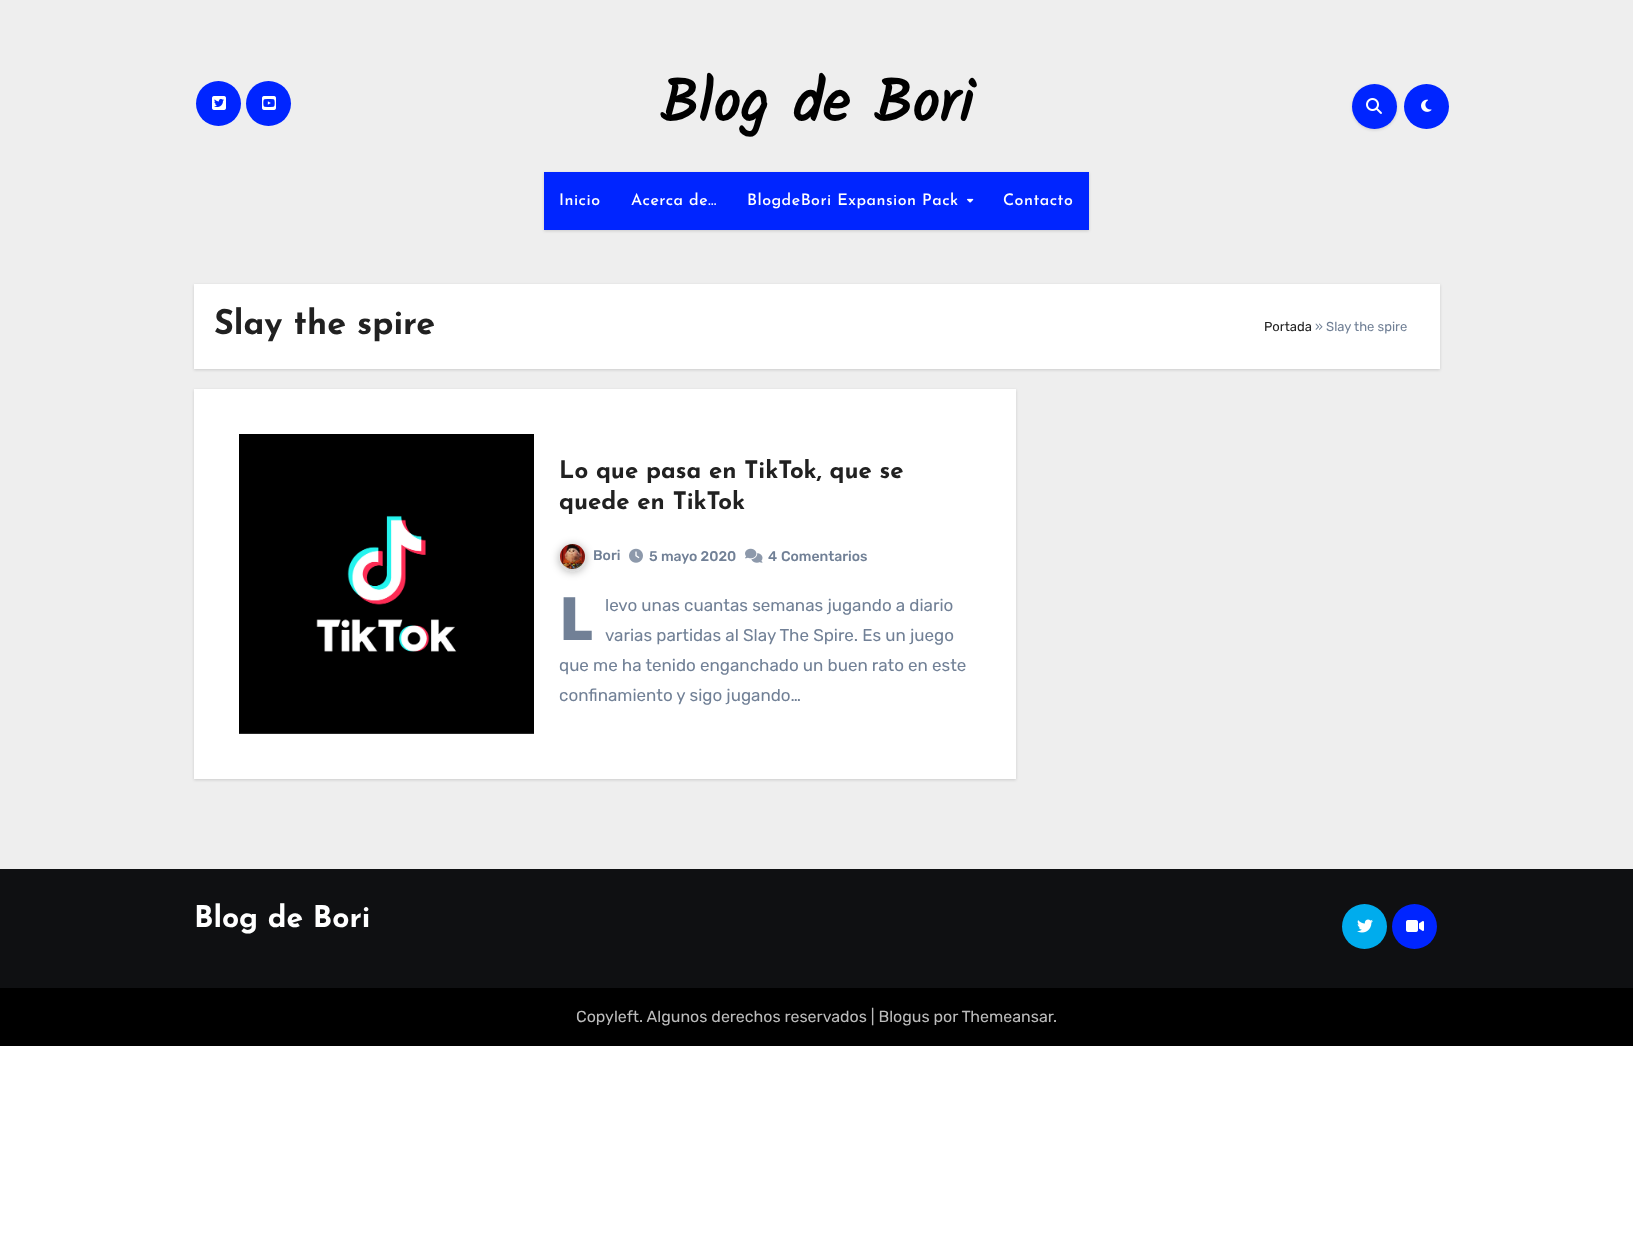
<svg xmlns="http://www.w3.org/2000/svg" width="1633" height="1242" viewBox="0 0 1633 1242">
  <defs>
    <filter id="blur1" x="-50%" y="-200%" width="200%" height="500%"><feGaussianBlur stdDeviation="1.5"/></filter>
    <filter id="blur2" x="-50%" y="-200%" width="200%" height="500%"><feGaussianBlur stdDeviation="4"/></filter>
  </defs>
  <rect width="100%" height="100%" fill="#ffffff"/>
  <rect x="0" y="0" width="1633" height="869" fill="#eeeeee"/>
  <circle cx="218.5" cy="103.5" r="22.5" fill="#0025ff"/>
  <image x="212" y="96" width="14" height="14" href="img1.png"/>
  <circle cx="268.5" cy="103.5" r="22.5" fill="#0025ff"/>
  <image x="262" y="96" width="14" height="14" href="img2.png"/>
  <text x="660" y="122" font-family="Kalam" font-size="60" font-weight="bold" fill="#000000">Blog de Bori</text>
  <rect x="1352" y="85" width="45" height="45" rx="22.5" fill="#000000" fill-opacity="0.15" filter="url(#blur1)"/>
  <circle cx="1374.5" cy="106.5" r="22.5" fill="#0025ff"/>
  <image x="1366" y="98" width="16" height="16" href="img3.png"/>
  <circle cx="1426.5" cy="106.5" r="22.5" fill="#0025ff"/>
  <image x="1421" y="99" width="11" height="13" href="img4.png"/>
  <rect x="544" y="173" width="545" height="58" fill="#000000" fill-opacity="0.15" filter="url(#blur1)"/>
  <rect x="544" y="172" width="545" height="58" fill="#0025ff"/>
  <text x="559" y="205" font-family="Josefin Sans" font-size="16" font-weight="500" letter-spacing="0.5" fill="#ffffff">Inicio</text>
  <text x="631" y="205" font-family="Josefin Sans" font-size="16" font-weight="500" letter-spacing="0.5" fill="#ffffff">Acerca de…</text>
  <text x="747" y="205" font-family="Josefin Sans" font-size="16" font-weight="500" letter-spacing="0.5" fill="#ffffff">BlogdeBori Expansion Pack</text>
  <image x="967" y="198" width="7" height="5" href="img5.png"/>
  <text x="1003" y="205" font-family="Josefin Sans" font-size="16" font-weight="500" letter-spacing="0.5" fill="#ffffff">Contacto</text>
  <rect x="194" y="285" width="1246" height="85" fill="#000000" fill-opacity="0.15" filter="url(#blur1)"/>
  <rect x="194" y="284" width="1246" height="85" fill="#ffffff"/>
  <text x="214" y="334" font-family="Josefin Sans" font-size="34" font-weight="bold" fill="#212121">Slay the spire</text>
  <text x="1264" y="331" font-family="Rubik" font-size="13" font-weight="300" fill="#212121">Portada</text>
  <text x="1315" y="331" font-family="Rubik" font-size="13" font-weight="300" fill="#718096">» Slay the spire</text>
  <rect x="194" y="390" width="822" height="390" fill="#000000" fill-opacity="0.15" filter="url(#blur1)"/>
  <rect x="194" y="389" width="822" height="390" fill="#ffffff"/>
  <image x="239" y="434" width="295" height="300" href="img6.png"/>
  <text x="559" y="478" font-family="Josefin Sans" font-size="24" font-weight="bold" fill="#212121">Lo que pasa en TikTok, que se</text>
  <text x="559" y="509" font-family="Josefin Sans" font-size="24" font-weight="bold" fill="#212121">quede en TikTok</text>
  <rect x="559" y="545" width="27" height="27" rx="13.5" fill="#212121" fill-opacity="0.3" filter="url(#blur2)"/>
  <image x="560" y="544" width="25" height="25" href="img7.png"/>
  <text x="593" y="560" font-family="Rubik" font-size="14" font-weight="500" fill="#718096">Bori</text>
  <image x="629" y="548" width="14" height="15" href="img8.png"/>
  <text x="649" y="561" font-family="Rubik" font-size="14" font-weight="500" fill="#718096">5 mayo 2020</text>
  <image x="745" y="548" width="18" height="15" href="img9.png"/>
  <text x="768" y="561" font-family="Rubik" font-size="14" font-weight="500" fill="#718096">4</text>
  <text x="781" y="561" font-family="Rubik" font-size="14" font-weight="500" fill="#718096">Comentarios</text>
  <text x="559" y="640" font-family="Noto Sans" font-size="60" font-weight="900" fill="#718096">L</text>
  <text x="605" y="611" font-family="Rubik" font-size="17" font-weight="300" fill="#718096">levo unas cuantas semanas jugando a diario</text>
  <text x="605" y="641" font-family="Rubik" font-size="17" font-weight="300" fill="#718096">varias partidas al Slay The Spire. Es un juego</text>
  <text x="559" y="671" font-family="Rubik" font-size="17" font-weight="300" fill="#718096">que me ha tenido enganchado un buen rato en este</text>
  <text x="559" y="701" font-family="Rubik" font-size="17" font-weight="300" fill="#718096">confinamiento y sigo jugando…</text>
  <rect x="0" y="869" width="1633" height="119" fill="#0f1012"/>
  <text x="194" y="927" font-family="Josefin Sans" font-size="30" font-weight="bold" fill="#ffffff">Blog de Bori</text>
  <circle cx="1364.5" cy="926.5" r="22.5" fill="#00aced"/>
  <image x="1357" y="919" width="16" height="14" href="img10.png"/>
  <circle cx="1414.5" cy="926.5" r="22.5" fill="#0025ff"/>
  <image x="1406" y="920" width="18" height="12" href="img11.png"/>
  <rect x="0" y="988" width="1633" height="58" fill="#000000"/>
  <text x="576" y="1022" font-family="Rubik" font-size="16" font-weight="300" fill="#bbbbbb">Copyleft. Algunos derechos reservados | Blogus por Themeansar</text>
  <text x="1053" y="1022" font-family="Rubik" font-size="16" font-weight="300" fill="#bbbbbb">.</text>
</svg>
